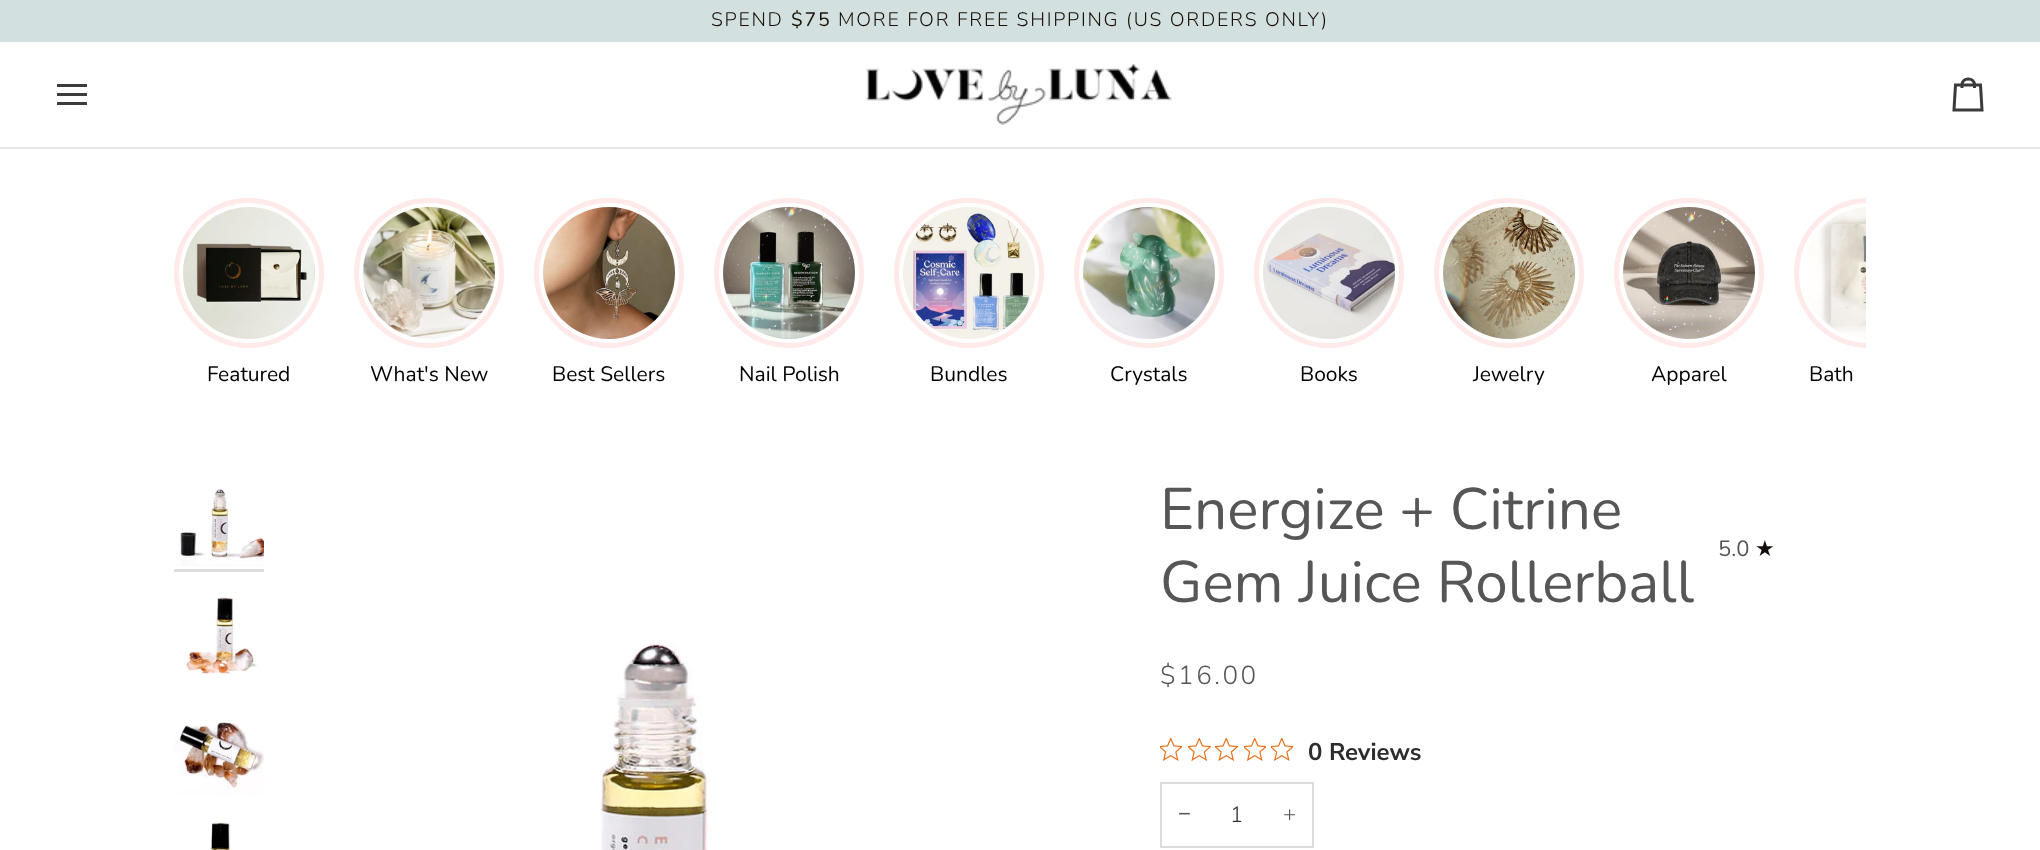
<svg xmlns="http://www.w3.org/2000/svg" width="2040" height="850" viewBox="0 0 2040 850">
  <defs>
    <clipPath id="clip1"><rect x="174" y="198" width="1692" height="191"/></clipPath>
  </defs>
  <rect width="100%" height="100%" fill="#ffffff"/>
  <rect x="0" y="0" width="2040" height="42" fill="#d2e0df"/>
  <text x="711" y="26" font-family="Nunito" font-size="19.5" font-weight="300" letter-spacing="1.75" fill="#191008">SPEND</text>
  <text x="791" y="26" font-family="Nunito" font-size="19.5" letter-spacing="1.75" fill="#191008">$75</text>
  <text x="838" y="26" font-family="Nunito" font-size="19.5" font-weight="300" letter-spacing="1.75" fill="#191008">MORE FOR FREE SHIPPING (US ORDERS ONLY)</text>
  <rect x="0" y="147" width="2040" height="2" fill="#e7e7e7"/>
  <path d="M85.5 85.5H58.5M85.5 94.5H58.5M85.5 103.5H58.5" fill="none" stroke="#3b3b3b" stroke-width="3" stroke-linecap="square"/>
  <image x="865" y="64" width="307" height="61" href="img1.png"/>
  <path d="M1974.5 88V85H1980.5L1982 110H1954L1955.5 85H1962C1962 77 1974.5 77 1974.5 85H1962V88" fill="none" stroke="#3b3b3b" stroke-width="3"/>
  <circle cx="249" cy="273" r="72.5" fill="none" stroke="#ffe9e9" stroke-width="5"/>
  <image x="183" y="207" width="132" height="132" href="img2.png"/>
  <text x="207" y="381" font-family="Nunito" font-size="21" fill="#000000">Featured</text>
  <circle cx="429" cy="273" r="72.5" fill="none" stroke="#ffe9e9" stroke-width="5"/>
  <image x="363" y="207" width="132" height="132" href="img3.png"/>
  <text x="370" y="381" font-family="Nunito" font-size="21" fill="#000000">What's New</text>
  <circle cx="609" cy="273" r="72.5" fill="none" stroke="#ffe9e9" stroke-width="5"/>
  <image x="543" y="207" width="132" height="132" href="img4.png"/>
  <text x="552" y="381" font-family="Nunito" font-size="21" fill="#000000">Best Sellers</text>
  <circle cx="789" cy="273" r="72.5" fill="none" stroke="#ffe9e9" stroke-width="5"/>
  <image x="723" y="207" width="132" height="132" href="img5.png"/>
  <text x="739" y="381" font-family="Nunito" font-size="21" fill="#000000">Nail Polish</text>
  <circle cx="969" cy="273" r="72.5" fill="none" stroke="#ffe9e9" stroke-width="5"/>
  <image x="903" y="207" width="132" height="132" href="img6.png"/>
  <text x="930" y="381" font-family="Nunito" font-size="21" fill="#000000">Bundles</text>
  <circle cx="1149" cy="273" r="72.5" fill="none" stroke="#ffe9e9" stroke-width="5"/>
  <image x="1083" y="207" width="132" height="132" href="img7.png"/>
  <text x="1110" y="381" font-family="Nunito" font-size="21" fill="#000000">Crystals</text>
  <circle cx="1329" cy="273" r="72.5" fill="none" stroke="#ffe9e9" stroke-width="5"/>
  <image x="1263" y="207" width="132" height="132" href="img8.png"/>
  <text x="1300" y="381" font-family="Nunito" font-size="21" fill="#000000">Books</text>
  <circle cx="1509" cy="273" r="72.5" fill="none" stroke="#ffe9e9" stroke-width="5"/>
  <image x="1443" y="207" width="132" height="132" href="img9.png"/>
  <text x="1473" y="381" font-family="Nunito" font-size="21" fill="#000000">Jewelry</text>
  <circle cx="1689" cy="273" r="72.5" fill="none" stroke="#ffe9e9" stroke-width="5"/>
  <image x="1623" y="207" width="132" height="132" href="img10.png"/>
  <text x="1651" y="381" font-family="Nunito" font-size="21" fill="#000000">Apparel</text>
  <g clip-path="url(#clip1)">
    <circle cx="1869" cy="273" r="72.5" fill="none" stroke="#ffe9e9" stroke-width="5"/>
  </g>
  <image x="1807" y="207" width="59" height="132" href="img11.png"/>
  <text x="1809" y="381" font-family="Nunito" font-size="21" fill="#000000">Bath</text>
  <rect x="174" y="565" width="90" height="1" fill="#f7f7f7"/>
  <image x="174" y="476" width="90" height="90" href="img12.png"/>
  <rect x="174" y="569" width="90" height="3" fill="#dddddd"/>
  <image x="174" y="591" width="90" height="90" href="img13.png"/>
  <image x="174" y="705" width="90" height="90" href="img14.png"/>
  <image x="174" y="821" width="90" height="29" href="img15.png"/>
  <image x="600" y="644" width="111" height="206" href="img16.png"/>
  <text x="1160" y="529" font-family="Nunito" font-size="58.5" fill="#565656">Energize + Citrine</text>
  <text x="1160" y="602" font-family="Nunito" font-size="58.5" fill="#565656">Gem Juice Rollerball</text>
  <text x="1718" y="556" font-family="Nunito" font-size="22" fill="#565656">5.0</text>
  <text x="1755" y="556" font-family="DejaVu Sans" font-size="22" fill="#120d0a">★</text>
  <text x="1160" y="684" font-family="Nunito" font-size="26" font-weight="300" letter-spacing="2.5" fill="#565656">$16.00</text>
  <image x="1160" y="738" width="22" height="23" href="img17.png"/>
  <image x="1188" y="738" width="23" height="23" href="img18.png"/>
  <image x="1215" y="738" width="23" height="23" href="img18.png"/>
  <image x="1244" y="738" width="22" height="23" href="img17.png"/>
  <image x="1271" y="738" width="22" height="23" href="img17.png"/>
  <text x="1308" y="760" font-family="Nunito Sans" font-size="24" font-weight="200" fill="#2c2c2c">0 Reviews</text>
  <rect x="1161" y="783" width="152" height="64" fill="none" stroke="#dddddd" stroke-width="2"/>
  <text x="1178" y="821" font-family="Liberation Sans" font-size="22" fill="#565656">−</text>
  <text x="1230" y="822" font-family="Nunito" font-size="22" font-weight="300" fill="#352b2b">1</text>
  <text x="1283" y="821" font-family="Nunito" font-size="22" font-weight="300" fill="#565656">+</text>
</svg>
